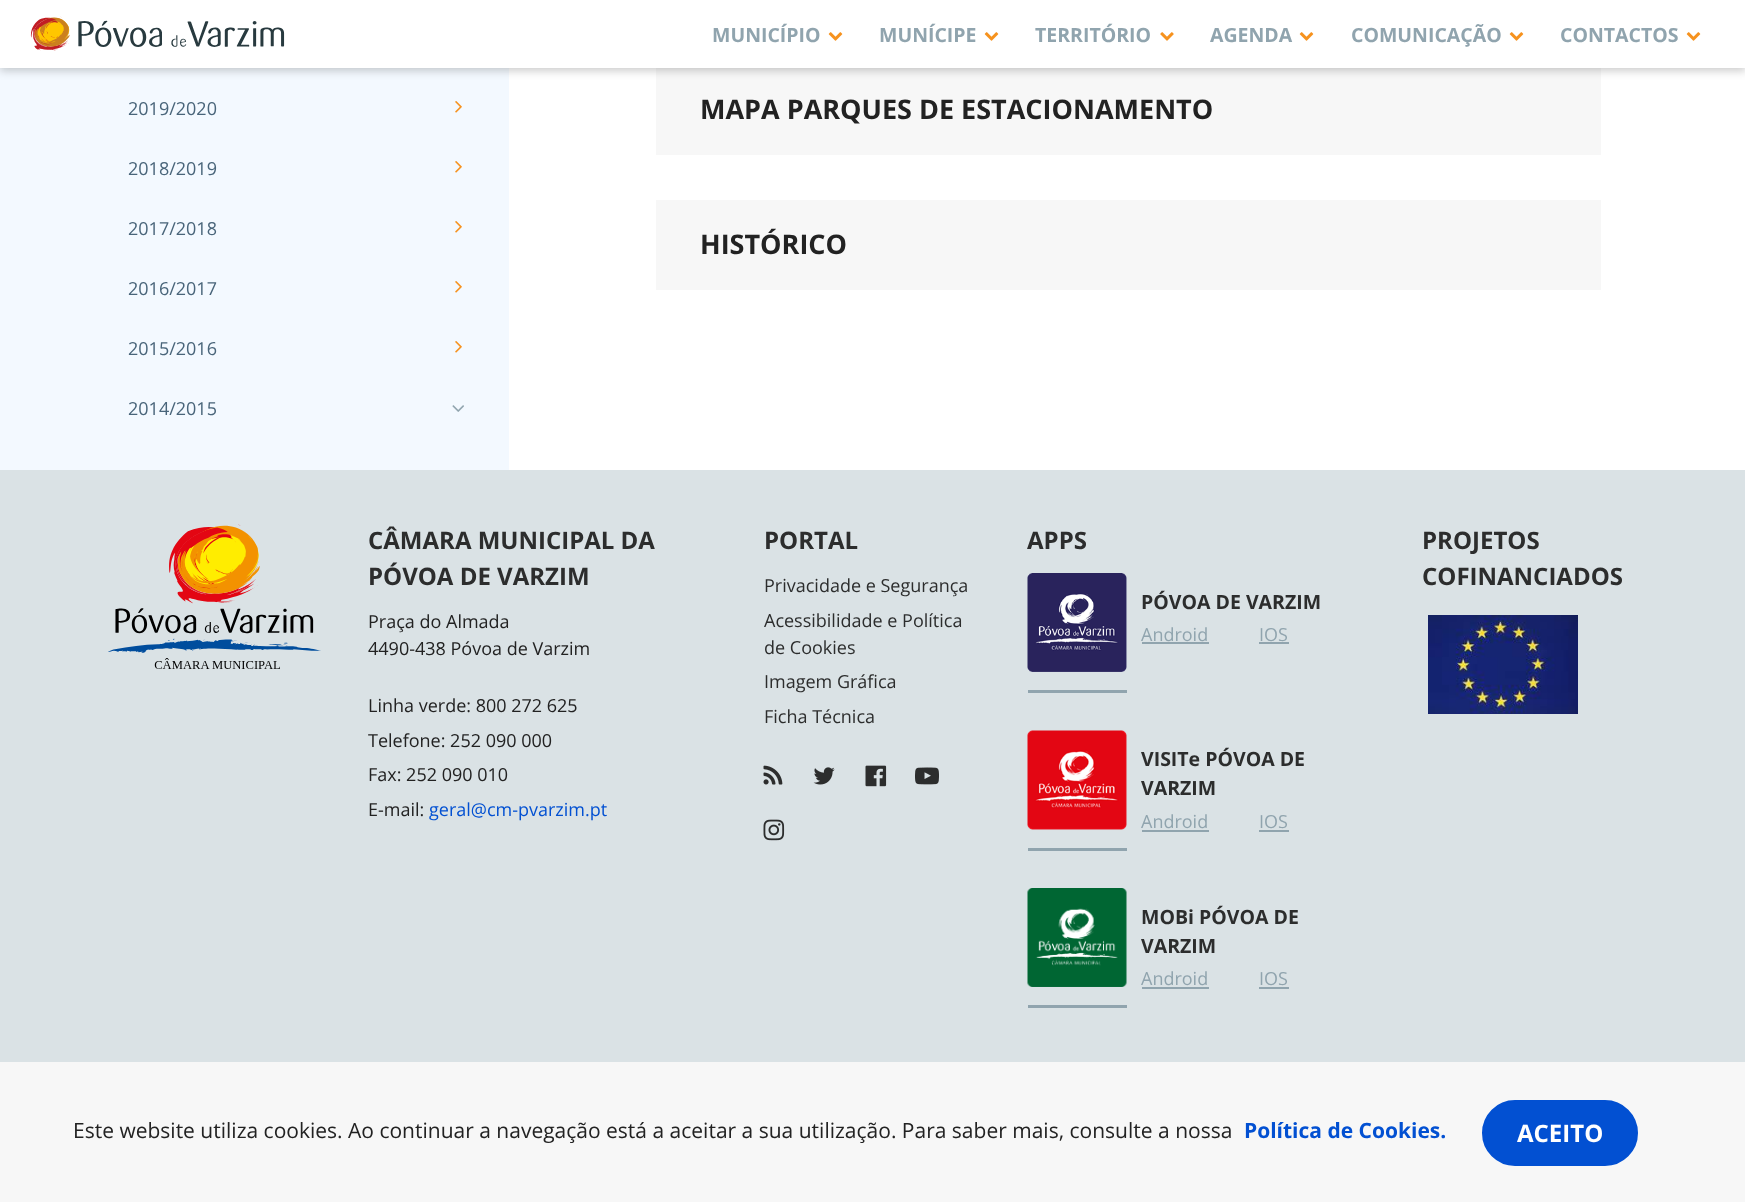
<svg xmlns="http://www.w3.org/2000/svg" width="1745" height="1202" viewBox="0 0 1745 1202">
  <defs>
    <filter id="blur1" x="-50%" y="-200%" width="200%" height="500%"><feGaussianBlur stdDeviation="4"/></filter>
  </defs>
  <rect width="100%" height="100%" fill="#ffffff"/>
  <rect x="0" y="68" width="509" height="402" fill="#f3f9ff"/>
  <rect x="656" y="68" width="945" height="87" fill="#f7f7f7"/>
  <rect x="0" y="3" width="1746" height="68" fill="#000000" fill-opacity="0.2" filter="url(#blur1)"/>
  <rect x="0" y="0" width="1745" height="68" fill="#ffffff"/>
  <image x="30" y="16" width="255" height="35" href="img1.png"/>
  <text x="712" y="42" font-family="Open Sans" font-size="19.5" font-weight="bold" fill="#90a4ae">MUNICÍPIO</text>
  <image x="828" y="32" width="15" height="9" href="img2.png"/>
  <text x="879" y="42" font-family="Open Sans" font-size="19.5" font-weight="bold" fill="#90a4ae">MUNÍCIPE</text>
  <image x="984" y="32" width="15" height="9" href="img2.png"/>
  <text x="1035" y="42" font-family="Open Sans" font-size="19.5" font-weight="bold" fill="#90a4ae">TERRITÓRIO</text>
  <image x="1160" y="32" width="14" height="9" href="img3.png"/>
  <text x="1210" y="42" font-family="Open Sans" font-size="19.5" font-weight="bold" fill="#90a4ae">AGENDA</text>
  <image x="1299" y="32" width="15" height="9" href="img2.png"/>
  <text x="1351" y="42" font-family="Open Sans" font-size="19.5" font-weight="bold" fill="#90a4ae">COMUNICAÇÃO</text>
  <image x="1509" y="32" width="15" height="9" href="img2.png"/>
  <text x="1560" y="42" font-family="Open Sans" font-size="19.5" font-weight="bold" fill="#90a4ae">CONTACTOS</text>
  <image x="1686" y="32" width="15" height="9" href="img2.png"/>
  <text x="128" y="115" font-family="Open Sans" font-size="18" fill="#49657a">2019/2020</text>
  <image x="455" y="101" width="7" height="12" href="img4.png"/>
  <text x="128" y="175" font-family="Open Sans" font-size="18" fill="#49657a">2018/2019</text>
  <image x="455" y="161" width="7" height="12" href="img4.png"/>
  <text x="128" y="235" font-family="Open Sans" font-size="18" fill="#49657a">2017/2018</text>
  <image x="455" y="221" width="7" height="12" href="img4.png"/>
  <text x="128" y="295" font-family="Open Sans" font-size="18" fill="#49657a">2016/2017</text>
  <image x="455" y="281" width="7" height="12" href="img4.png"/>
  <text x="128" y="355" font-family="Open Sans" font-size="18" fill="#49657a">2015/2016</text>
  <image x="455" y="341" width="7" height="12" href="img4.png"/>
  <text x="128" y="415" font-family="Open Sans" font-size="18" fill="#49657a">2014/2015</text>
  <image x="452" y="405" width="12" height="7" href="img5.png"/>
  <text x="700" y="119" font-family="Open Sans" font-size="27" font-weight="bold" fill="#222222">MAPA PARQUES DE ESTACIONAMENTO</text>
  <rect x="656" y="200" width="945" height="90" fill="#f7f7f7"/>
  <text x="700" y="254" font-family="Open Sans" font-size="27" font-weight="bold" fill="#222222">HISTÓRICO</text>
  <rect x="0" y="470" width="1745" height="592" fill="#dae2e5"/>
  <image x="108" y="524" width="213" height="145" href="img6.png"/>
  <text x="368" y="549" font-family="Open Sans" font-size="24" font-weight="bold" fill="#2c2d2d">CÂMARA MUNICIPAL DA</text>
  <text x="368" y="585" font-family="Open Sans" font-size="24" font-weight="bold" fill="#2c2d2d">PÓVOA DE VARZIM</text>
  <text x="368" y="628" font-family="Open Sans" font-size="18" fill="#222222">Praça do Almada</text>
  <text x="368" y="655" font-family="Open Sans" font-size="18" fill="#222222">4490-438 Póvoa de Varzim</text>
  <text x="368" y="712" font-family="Open Sans" font-size="18" fill="#222222">Linha verde: 800 272 625</text>
  <text x="368" y="747" font-family="Open Sans" font-size="18" fill="#222222">Telefone: 252 090 000</text>
  <text x="368" y="781" font-family="Open Sans" font-size="18" fill="#222222">Fax: 252 090 010</text>
  <text x="368" y="816" font-family="Open Sans" font-size="18" fill="#222222">E-mail:</text>
  <text x="429" y="816" font-family="Open Sans" font-size="18" fill="#0250d2">geral@cm-pvarzim.pt</text>
  <text x="764" y="549" font-family="Open Sans" font-size="24" font-weight="bold" fill="#2c2d2d">PORTAL</text>
  <text x="764" y="592" font-family="Open Sans" font-size="18" fill="#2c2d2d">Privacidade e Segurança</text>
  <text x="764" y="627" font-family="Open Sans" font-size="18" fill="#2c2d2d">Acessibilidade e Política</text>
  <text x="764" y="654" font-family="Open Sans" font-size="18" fill="#2c2d2d">de Cookies</text>
  <text x="764" y="688" font-family="Open Sans" font-size="18" fill="#2c2d2d">Imagem Gráfica</text>
  <text x="764" y="723" font-family="Open Sans" font-size="18" fill="#2c2d2d">Ficha Técnica</text>
  <image x="763" y="765" width="20" height="20" href="img7.png"/>
  <image x="813" y="767" width="22" height="18" href="img8.png"/>
  <image x="865" y="765" width="22" height="22" href="img9.png"/>
  <image x="915" y="767" width="24" height="18" href="img10.png"/>
  <image x="763" y="819" width="22" height="22" href="img11.png"/>
  <text x="1027" y="549" font-family="Open Sans" font-size="24" font-weight="bold" fill="#2c2d2d">APPS</text>
  <image x="1027" y="573" width="100" height="99" href="img12.png"/>
  <rect x="1028" y="690" width="99" height="3" fill="#90a4ae"/>
  <text x="1141" y="609" font-family="Open Sans" font-size="19.5" font-weight="bold" fill="#2c2d2d">PÓVOA DE VARZIM</text>
  <text x="1141" y="641" font-family="Open Sans" font-size="18" fill="#90a4ae">Android</text>
  <rect x="1142" y="642" width="67" height="2" fill="#90a4ae"/>
  <text x="1259" y="641" font-family="Open Sans" font-size="18" fill="#90a4ae">IOS</text>
  <rect x="1259" y="642" width="30" height="2" fill="#90a4ae"/>
  <image x="1027" y="730" width="100" height="100" href="img13.png"/>
  <rect x="1028" y="848" width="99" height="3" fill="#90a4ae"/>
  <text x="1141" y="766" font-family="Open Sans" font-size="19.5" font-weight="bold" fill="#2c2d2d">VISITe PÓVOA DE</text>
  <text x="1141" y="795" font-family="Open Sans" font-size="19.5" font-weight="bold" fill="#2c2d2d">VARZIM</text>
  <text x="1141" y="828" font-family="Open Sans" font-size="18" fill="#90a4ae">Android</text>
  <rect x="1142" y="830" width="67" height="2" fill="#90a4ae"/>
  <text x="1259" y="828" font-family="Open Sans" font-size="18" fill="#90a4ae">IOS</text>
  <rect x="1259" y="830" width="30" height="2" fill="#90a4ae"/>
  <image x="1027" y="888" width="100" height="99" href="img14.png"/>
  <rect x="1028" y="1005" width="99" height="3" fill="#90a4ae"/>
  <text x="1141" y="924" font-family="Open Sans" font-size="19.5" font-weight="bold" fill="#2c2d2d">MOBi PÓVOA DE</text>
  <text x="1141" y="953" font-family="Open Sans" font-size="19.5" font-weight="bold" fill="#2c2d2d">VARZIM</text>
  <text x="1141" y="985" font-family="Open Sans" font-size="18" fill="#90a4ae">Android</text>
  <rect x="1142" y="987" width="67" height="2" fill="#90a4ae"/>
  <text x="1259" y="985" font-family="Open Sans" font-size="18" fill="#90a4ae">IOS</text>
  <rect x="1259" y="987" width="30" height="2" fill="#90a4ae"/>
  <text x="1422" y="549" font-family="Open Sans" font-size="24" font-weight="bold" fill="#2c2d2d">PROJETOS</text>
  <text x="1422" y="585" font-family="Open Sans" font-size="24" font-weight="bold" fill="#2c2d2d">COFINANCIADOS</text>
  <image x="1428" y="615" width="150" height="99" href="img15.png"/>
  <rect x="0" y="1062" width="1745" height="140" fill="#f7f7f7"/>
  <text x="73" y="1138" font-family="Open Sans" font-size="21" fill="#222222">Este website utiliza cookies. Ao continuar a navegação está a aceitar a sua utilização. Para saber mais, consulte a nossa</text>
  <text x="1244" y="1138" font-family="Open Sans" font-size="21" font-weight="bold" fill="#0250d2">Política de Cookies.</text>
  <rect x="1483" y="1101" width="154" height="64" rx="32" fill="#0250d2" stroke="#0250d2" stroke-width="2"/>
  <text x="1517" y="1142" font-family="Open Sans" font-size="24" font-weight="bold" fill="#ffffff">ACEITO</text>
</svg>
